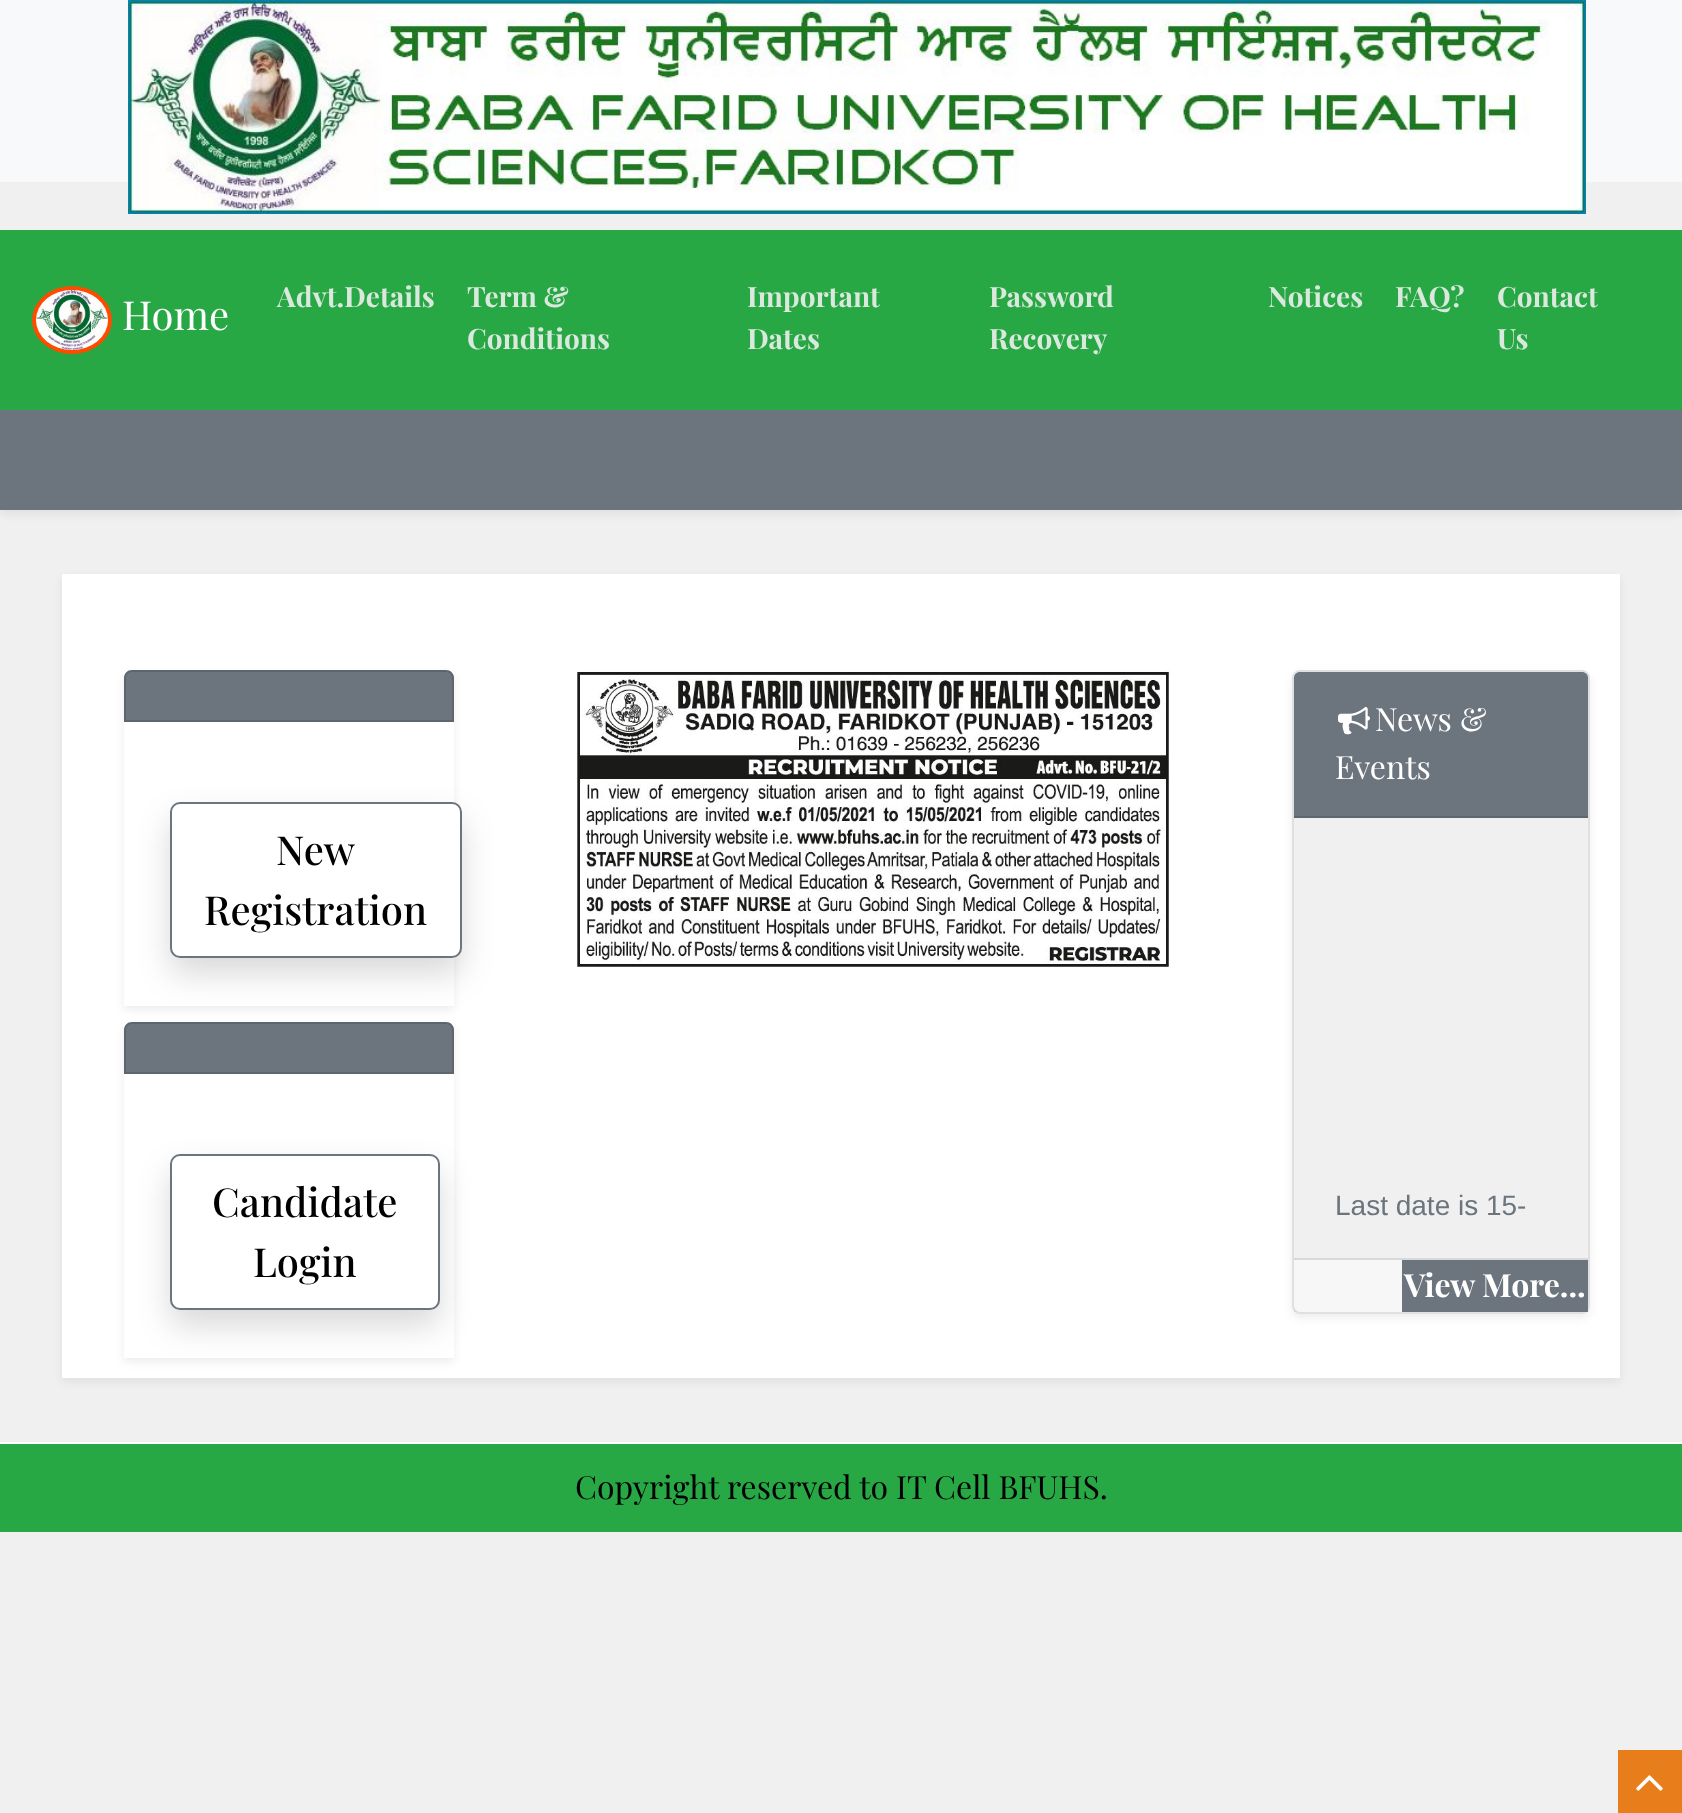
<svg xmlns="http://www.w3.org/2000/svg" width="1682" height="1813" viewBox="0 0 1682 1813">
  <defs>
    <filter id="blur1" x="-50%" y="-200%" width="200%" height="500%"><feGaussianBlur stdDeviation="4"/></filter>
    <clipPath id="clip1"><path d="M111 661H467V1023H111ZM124 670H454V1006H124Z" clip-rule="evenodd"/></clipPath>
    <filter id="blur2" x="-50%" y="-200%" width="200%" height="500%"><feGaussianBlur stdDeviation="16"/></filter>
    <clipPath id="clip2"><path d="M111 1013H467V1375H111ZM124 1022H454V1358H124Z" clip-rule="evenodd"/></clipPath>
  </defs>
  <rect width="100%" height="100%" fill="#f0f0f0"/>
  <rect x="0" y="0" width="1682" height="182" fill="#f8f9fa"/>
  <image x="128" y="0" width="1458" height="214" href="img1.png"/>
  <rect x="0" y="414" width="1682" height="100" fill="#000000" fill-opacity="0.07" filter="url(#blur1)"/>
  <rect x="0" y="230" width="1682" height="180" fill="#28a745"/>
  <ellipse cx="72" cy="320" rx="40" ry="34" fill="#ff4b00"/>
  <image x="36" y="290" width="72" height="60" href="img2.png"/>
  <text x="122" y="330" font-family="Playfair Display" font-size="40" fill="#ffffff">Home</text>
  <text x="277" y="307" font-family="Playfair Display" font-size="28" font-weight="bold" fill="#dae8dd">Advt.Details</text>
  <text x="467" y="307" font-family="Playfair Display" font-size="28" font-weight="bold" fill="#dae8dd">Term &amp;</text>
  <text x="467" y="349" font-family="Playfair Display" font-size="28" font-weight="bold" fill="#dae8dd">Conditions</text>
  <text x="747" y="307" font-family="Playfair Display" font-size="28" font-weight="bold" fill="#dae8dd">Important</text>
  <text x="747" y="349" font-family="Playfair Display" font-size="28" font-weight="bold" fill="#dae8dd">Dates</text>
  <text x="989" y="307" font-family="Playfair Display" font-size="28" font-weight="bold" fill="#dae8dd">Password</text>
  <text x="989" y="349" font-family="Playfair Display" font-size="28" font-weight="bold" fill="#dae8dd">Recovery</text>
  <text x="1268" y="307" font-family="Playfair Display" font-size="28" font-weight="bold" fill="#dae8dd">Notices</text>
  <text x="1395" y="307" font-family="Playfair Display" font-size="28" font-weight="bold" fill="#dae8dd">FAQ?</text>
  <text x="1497" y="307" font-family="Playfair Display" font-size="28" font-weight="bold" fill="#dae8dd">Contact</text>
  <text x="1497" y="349" font-family="Playfair Display" font-size="28" font-weight="bold" fill="#dae8dd">Us</text>
  <rect x="0" y="410" width="1682" height="100" fill="#6c757d"/>
  <rect x="62" y="578" width="1558" height="804" fill="#000000" fill-opacity="0.07" filter="url(#blur1)"/>
  <rect x="62" y="574" width="1558" height="804" fill="#ffffff"/>
  <g clip-path="url(#clip1)">
    <rect x="124" y="674" width="330" height="336" fill="#000000" fill-opacity="0.07" filter="url(#blur1)"/>
  </g>
  <path d="M132 670H446C450.5 670 454 673.5 454 678V722H124V678C124 673.5 127.5 670 132 670Z" fill="#6c757d"/>
  <path d="M132 671H446C450 671 453 674 453 678V721H125V678C125 674 128 671 132 671Z" fill="none" stroke="#000000" stroke-opacity="0.12" stroke-width="2"/>
  <rect x="170" y="818" width="292" height="156" rx="10" fill="#000000" fill-opacity="0.15" filter="url(#blur2)"/>
  <rect x="171" y="803" width="290" height="154" rx="9" fill="#ffffff" stroke="#6c757d" stroke-width="2"/>
  <text x="276" y="865" font-family="Playfair Display" font-size="40" font-weight="500" fill="#000000">New</text>
  <text x="204" y="925" font-family="Playfair Display" font-size="40" font-weight="500" fill="#000000">Registration</text>
  <g clip-path="url(#clip2)">
    <rect x="124" y="1026" width="330" height="336" fill="#000000" fill-opacity="0.07" filter="url(#blur1)"/>
  </g>
  <path d="M132 1022H446C450.5 1022 454 1025.5 454 1030V1074H124V1030C124 1025.5 127.5 1022 132 1022Z" fill="#6c757d"/>
  <path d="M132 1023H446C450 1023 453 1026 453 1030V1073H125V1030C125 1026 128 1023 132 1023Z" fill="none" stroke="#000000" stroke-opacity="0.12" stroke-width="2"/>
  <rect x="170" y="1170" width="270" height="156" rx="10" fill="#000000" fill-opacity="0.15" filter="url(#blur2)"/>
  <rect x="171" y="1155" width="268" height="154" rx="9" fill="#ffffff" stroke="#6c757d" stroke-width="2"/>
  <text x="212" y="1217" font-family="Playfair Display" font-size="40" font-weight="500" fill="#000000">Candidate</text>
  <text x="253" y="1277" font-family="Playfair Display" font-size="40" font-weight="500" fill="#000000">Login</text>
  <image x="576" y="670" width="594" height="298" href="img3.png"/>
  <rect x="1292" y="674" width="298" height="644" rx="8" fill="#000000" fill-opacity="0.07" filter="url(#blur1)"/>
  <rect x="1292" y="670" width="298" height="644" rx="8" fill="#ffffff"/>
  <rect x="1293" y="671" width="296" height="642" rx="7" fill="none" stroke="#000000" stroke-opacity="0.12" stroke-width="2"/>
  <path d="M1300 672H1582C1585.5 672 1588 674.5 1588 678V818H1294V678C1294 674.5 1296.5 672 1300 672Z" fill="#6c757d"/>
  <rect x="1294" y="816" width="294" height="2" fill="#5f666d"/>
  <image x="1338" y="706" width="32" height="29" href="img4.png"/>
  <text x="1375" y="731" font-family="Playfair Display" font-size="32" fill="#ffffff">News &amp;</text>
  <text x="1335" y="779" font-family="Playfair Display" font-size="32" fill="#ffffff">Events</text>
  <rect x="1294" y="818" width="294" height="440" fill="#f0f0f0"/>
  <text x="1335" y="1215" font-family="Liberation Sans" font-size="28" fill="#6c757d">Last date is 15-</text>
  <rect x="1294" y="1260" width="108" height="52" fill="#000000" fill-opacity="0.03"/>
  <rect x="1294" y="1258" width="294" height="2" fill="#d8d8d8"/>
  <rect x="1402" y="1260" width="186" height="52" fill="#6c757d"/>
  <text x="1404" y="1297" font-family="Playfair Display" font-size="32" font-weight="bold" fill="#ffffff">View More...</text>
  <rect x="0" y="1444" width="1682" height="88" fill="#28a745"/>
  <rect x="0" y="1442" width="1682" height="2" fill="#ffffff"/>
  <text x="575" y="1499" font-family="Playfair Display" font-size="32" fill="#000000">Copyright reserved to IT Cell BFUHS.</text>
  <rect x="1618" y="1750" width="64" height="63" fill="#e87d1c"/>
  <image x="1636" y="1775" width="27" height="16" href="img5.png"/>
</svg>
